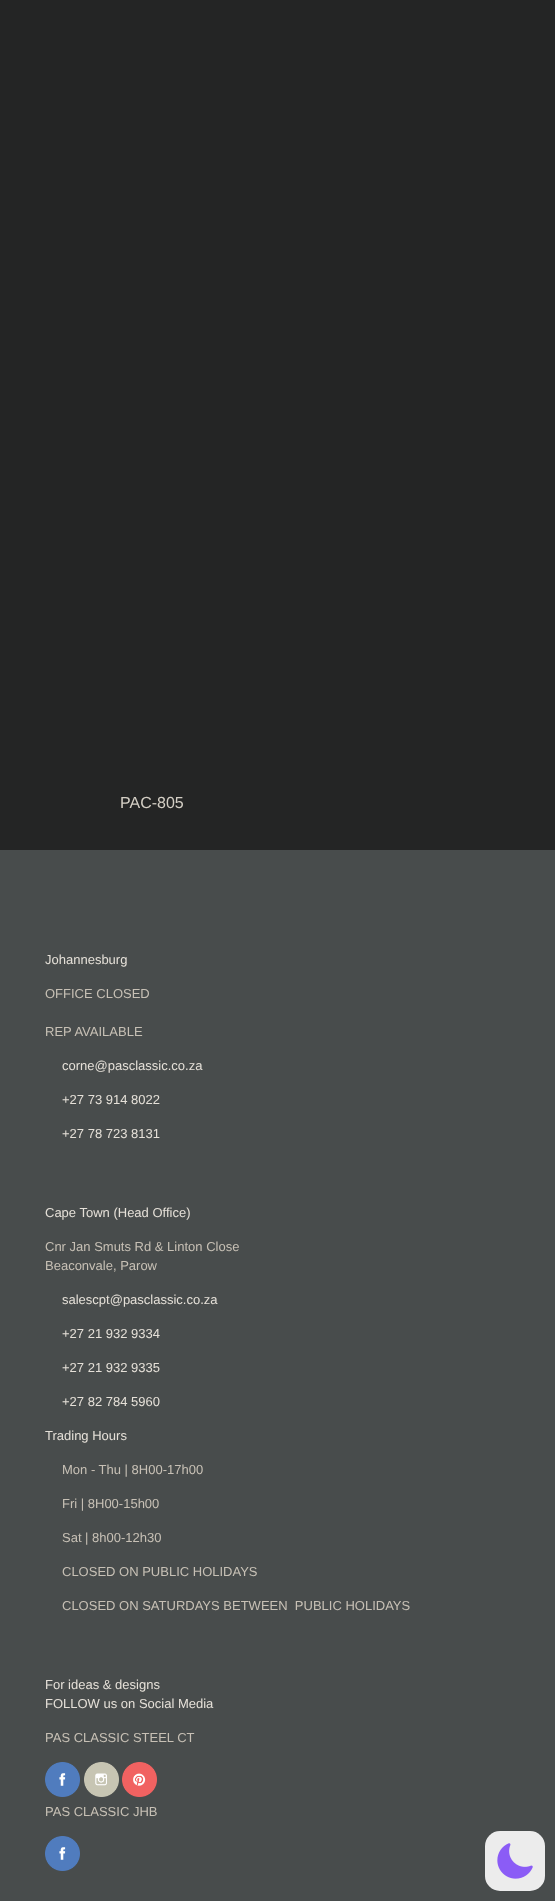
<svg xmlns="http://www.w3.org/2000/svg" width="555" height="1901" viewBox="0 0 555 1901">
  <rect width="100%" height="100%" fill="#242525"/>
  <text x="120" y="808" font-family="Liberation Sans" font-size="16" fill="#d4cfc5">PAC-805</text>
  <rect x="0" y="850" width="555" height="1051" fill="#484c4c"/>
  <text x="45" y="964" font-family="Liberation Sans" font-size="13" fill="#e5e0d8">Johannesburg</text>
  <text x="45" y="998" font-family="Liberation Sans" font-size="13" fill="#c7c0b5">OFFICE CLOSED</text>
  <text x="45" y="1036" font-family="Liberation Sans" font-size="13" fill="#c7c0b5">REP AVAILABLE</text>
  <text x="62" y="1070" font-family="Liberation Sans" font-size="13" fill="#e5e0d8">corne@pasclassic.co.za</text>
  <text x="62" y="1104" font-family="Liberation Sans" font-size="13" fill="#e5e0d8">+27 73 914 8022</text>
  <text x="62" y="1138" font-family="Liberation Sans" font-size="13" fill="#e5e0d8">+27 78 723 8131</text>
  <text x="45" y="1217" font-family="Liberation Sans" font-size="13" fill="#e5e0d8">Cape Town (Head Office)</text>
  <text x="45" y="1251" font-family="Liberation Sans" font-size="13" fill="#c7c0b5">Cnr Jan Smuts Rd &amp; Linton Close</text>
  <text x="45" y="1270" font-family="Liberation Sans" font-size="13" fill="#c7c0b5">Beaconvale, Parow</text>
  <text x="62" y="1304" font-family="Liberation Sans" font-size="13" fill="#e5e0d8">salescpt@pasclassic.co.za</text>
  <text x="62" y="1338" font-family="Liberation Sans" font-size="13" fill="#e5e0d8">+27 21 932 9334</text>
  <text x="62" y="1372" font-family="Liberation Sans" font-size="13" fill="#e5e0d8">+27 21 932 9335</text>
  <text x="62" y="1406" font-family="Liberation Sans" font-size="13" fill="#e5e0d8">+27 82 784 5960</text>
  <text x="45" y="1440" font-family="Liberation Sans" font-size="13" fill="#e5e0d8">Trading Hours</text>
  <text x="62" y="1474" font-family="Liberation Sans" font-size="13" fill="#c7c0b5">Mon - Thu | 8H00-17h00</text>
  <text x="62" y="1508" font-family="Liberation Sans" font-size="13" fill="#c7c0b5">Fri | 8H00-15h00</text>
  <text x="62" y="1542" font-family="Liberation Sans" font-size="13" fill="#c7c0b5">Sat | 8h00-12h30</text>
  <text x="62" y="1576" font-family="Liberation Sans" font-size="13" fill="#c7c0b5">CLOSED ON PUBLIC HOLIDAYS</text>
  <text x="62" y="1610" font-family="Liberation Sans" font-size="13" fill="#c7c0b5" xml:space="preserve">CLOSED ON SATURDAYS BETWEEN  PUBLIC HOLIDAYS</text>
  <text x="45" y="1689" font-family="Liberation Sans" font-size="13" fill="#e5e0d8">For ideas &amp; designs</text>
  <text x="45" y="1708" font-family="Liberation Sans" font-size="13" fill="#e5e0d8">FOLLOW us on Social Media</text>
  <text x="45" y="1742" font-family="Liberation Sans" font-size="13" fill="#c7c0b5">PAS CLASSIC STEEL CT</text>
  <image x="45" y="1762" width="35" height="35" href="img1.png"/>
  <image x="84" y="1762" width="35" height="35" href="img2.png"/>
  <image x="122" y="1762" width="35" height="35" href="img3.png"/>
  <text x="45" y="1816" font-family="Liberation Sans" font-size="13" fill="#c7c0b5">PAS CLASSIC JHB</text>
  <image x="45" y="1836" width="35" height="35" href="img1.png"/>
  <rect x="485" y="1831" width="60" height="60" rx="15" fill="#ececec"/>
  <image x="497" y="1843" width="36" height="36" href="img4.png"/>
</svg>
